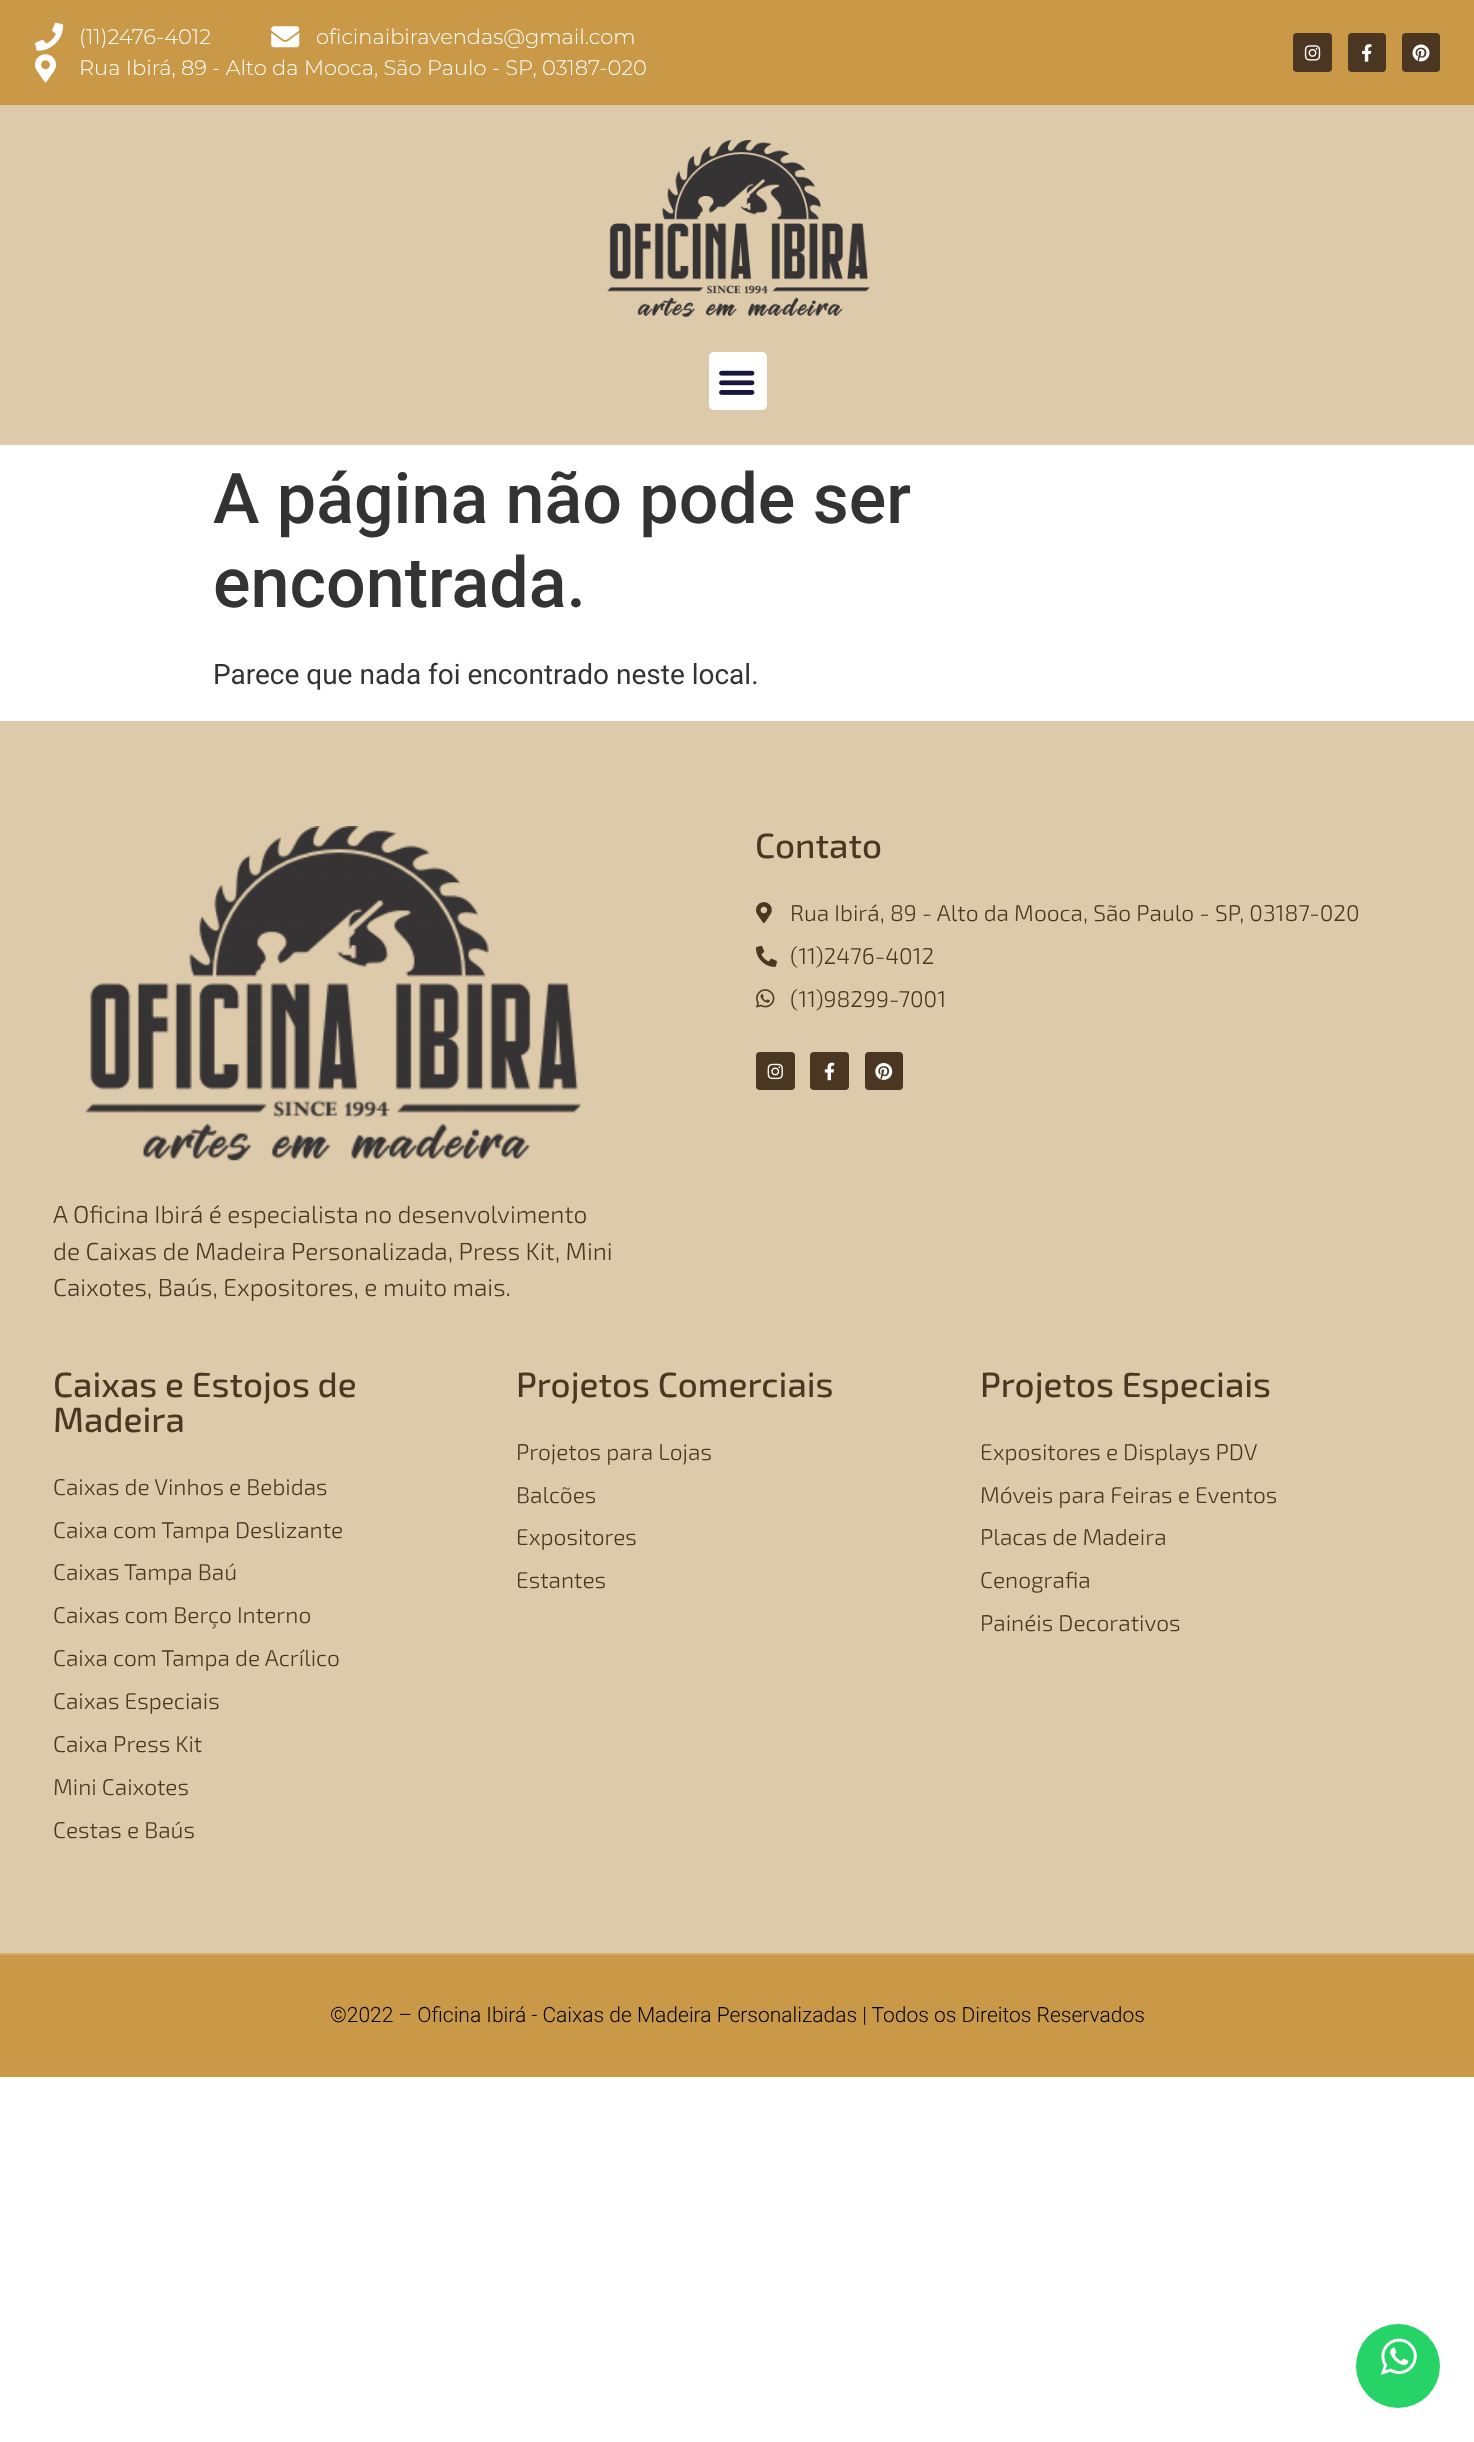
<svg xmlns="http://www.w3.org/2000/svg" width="1474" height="2442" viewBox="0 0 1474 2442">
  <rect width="100%" height="100%" fill="#ffffff"/>
  <rect x="0" y="0" width="1474" height="105" fill="#c99948"/>
  <image x="35" y="22" width="29" height="29" href="img1.png"/>
  <text x="79" y="44" font-family="Montserrat" font-size="21" font-weight="300" fill="#ffffff">(11)2476-4012</text>
  <image x="271" y="26" width="29" height="22" href="img2.png"/>
  <text x="316" y="44" font-family="Montserrat" font-size="21" font-weight="300" fill="#ffffff">oficinaibiravendas@gmail.com</text>
  <image x="35" y="54" width="21" height="29" href="img3.png"/>
  <text x="79" y="75" font-family="Montserrat" font-size="21" font-weight="300" fill="#ffffff">Rua Ibirá, 89 - Alto da Mooca, São Paulo - SP, 03187-020</text>
  <rect x="1293" y="33" width="39" height="39" rx="4" fill="#4b3621"/>
  <image x="1304" y="45" width="17" height="16" href="img4.png"/>
  <rect x="1348" y="33" width="38" height="39" rx="4" fill="#4b3621"/>
  <image x="1362" y="44" width="10" height="18" href="img5.png"/>
  <rect x="1402" y="33" width="38" height="39" rx="4" fill="#4b3621"/>
  <image x="1412" y="44" width="18" height="18" href="img6.png"/>
  <rect x="0" y="105" width="1474" height="340" fill="#ddcaaa"/>
  <image x="607" y="140" width="263" height="177" href="img7.png"/>
  <rect x="709" y="352" width="58" height="58" rx="5" fill="#ffffff"/>
  <image x="719" y="370" width="36" height="25" href="img8.png"/>
  <text x="213" y="523" font-family="Roboto" font-size="70" font-weight="500" fill="#333333">A página não pode ser</text>
  <text x="213" y="607" font-family="Roboto" font-size="70" font-weight="500" fill="#333333">encontrada.</text>
  <text x="213" y="684" font-family="Roboto" font-size="28" fill="#333333">Parece que nada foi encontrado neste local.</text>
  <rect x="0" y="721" width="1474" height="1232" fill="#ddcaaa"/>
  <text x="755" y="858" font-family="'Exo 2'" font-size="35" font-weight="500" fill="#4b3621">Contato</text>
  <image x="756" y="902" width="16" height="22" href="img9.png"/>
  <text x="790" y="921" font-family="'Exo 2'" font-size="22.75" font-weight="300" fill="#4b3621">Rua Ibirá, 89 - Alto da Mooca, São Paulo - SP, 03187-020</text>
  <image x="756" y="945" width="21" height="22" href="img10.png"/>
  <text x="790" y="964" font-family="'Exo 2'" font-size="22.75" font-weight="300" fill="#4b3621">(11)2476-4012</text>
  <image x="756" y="989" width="19" height="19" href="img11.png"/>
  <text x="790" y="1007" font-family="'Exo 2'" font-size="22.75" font-weight="300" fill="#4b3621">(11)98299-7001</text>
  <rect x="756" y="1052" width="39" height="38" rx="4" fill="#4b3621"/>
  <image x="767" y="1063" width="16" height="17" href="img12.png"/>
  <rect x="810" y="1052" width="39" height="38" rx="4" fill="#4b3621"/>
  <image x="824" y="1062" width="11" height="19" href="img13.png"/>
  <rect x="865" y="1052" width="38" height="38" rx="4" fill="#4b3621"/>
  <image x="875" y="1063" width="18" height="17" href="img14.png"/>
  <image x="85" y="826" width="496" height="335" href="img15.png"/>
  <text x="53" y="1223" font-family="'Exo 2'" font-size="24.5" font-weight="300" fill="#4b3621">A Oficina Ibirá é especialista no desenvolvimento</text>
  <text x="53" y="1260" font-family="'Exo 2'" font-size="24.5" font-weight="300" fill="#4b3621">de Caixas de Madeira Personalizada, Press Kit, Mini</text>
  <text x="53" y="1296" font-family="'Exo 2'" font-size="24.5" font-weight="300" fill="#4b3621">Caixotes, Baús, Expositores, e muito mais.</text>
  <text x="53" y="1397" font-family="'Exo 2'" font-size="35" font-weight="500" fill="#4b3621">Caixas e Estojos de</text>
  <text x="53" y="1432" font-family="'Exo 2'" font-size="35" font-weight="500" fill="#4b3621">Madeira</text>
  <text x="53" y="1495" font-family="'Exo 2'" font-size="22.75" font-weight="300" fill="#4b3621">Caixas de Vinhos e Bebidas</text>
  <text x="53" y="1538" font-family="'Exo 2'" font-size="22.75" font-weight="300" fill="#4b3621">Caixa com Tampa Deslizante</text>
  <text x="53" y="1580" font-family="'Exo 2'" font-size="22.75" font-weight="300" fill="#4b3621">Caixas Tampa Baú</text>
  <text x="53" y="1623" font-family="'Exo 2'" font-size="22.75" font-weight="300" fill="#4b3621">Caixas com Berço Interno</text>
  <text x="53" y="1666" font-family="'Exo 2'" font-size="22.75" font-weight="300" fill="#4b3621">Caixa com Tampa de Acrílico</text>
  <text x="53" y="1709" font-family="'Exo 2'" font-size="22.75" font-weight="300" fill="#4b3621">Caixas Especiais</text>
  <text x="53" y="1752" font-family="'Exo 2'" font-size="22.75" font-weight="300" fill="#4b3621">Caixa Press Kit</text>
  <text x="53" y="1795" font-family="'Exo 2'" font-size="22.75" font-weight="300" fill="#4b3621">Mini Caixotes</text>
  <text x="53" y="1838" font-family="'Exo 2'" font-size="22.75" font-weight="300" fill="#4b3621">Cestas e Baús</text>
  <text x="516" y="1397" font-family="'Exo 2'" font-size="35" font-weight="500" fill="#4b3621">Projetos Comerciais</text>
  <text x="516" y="1460" font-family="'Exo 2'" font-size="22.75" font-weight="300" fill="#4b3621">Projetos para Lojas</text>
  <text x="516" y="1503" font-family="'Exo 2'" font-size="22.75" font-weight="300" fill="#4b3621">Balcões</text>
  <text x="516" y="1545" font-family="'Exo 2'" font-size="22.75" font-weight="300" fill="#4b3621">Expositores</text>
  <text x="516" y="1588" font-family="'Exo 2'" font-size="22.75" font-weight="300" fill="#4b3621">Estantes</text>
  <text x="980" y="1397" font-family="'Exo 2'" font-size="35" font-weight="500" fill="#4b3621">Projetos Especiais</text>
  <text x="980" y="1460" font-family="'Exo 2'" font-size="22.75" font-weight="300" fill="#4b3621">Expositores e Displays PDV</text>
  <text x="980" y="1503" font-family="'Exo 2'" font-size="22.75" font-weight="300" fill="#4b3621">Móveis para Feiras e Eventos</text>
  <text x="980" y="1545" font-family="'Exo 2'" font-size="22.75" font-weight="300" fill="#4b3621">Placas de Madeira</text>
  <text x="980" y="1588" font-family="'Exo 2'" font-size="22.75" font-weight="300" fill="#4b3621">Cenografia</text>
  <text x="980" y="1631" font-family="'Exo 2'" font-size="22.75" font-weight="300" fill="#4b3621">Painéis Decorativos</text>
  <rect x="0" y="1955" width="1474" height="122" fill="#c99948"/>
  <rect x="0" y="1953" width="1474" height="2" fill="#d3ac6b"/>
  <text x="330" y="2022" font-family="Roboto" font-size="21" font-weight="300" fill="#000000">©2022 – Oficina Ibirá - Caixas de Madeira Personalizadas | Todos os Direitos Reservados</text>
  <circle cx="1398" cy="2366" r="42" fill="#25d366"/>
  <image x="1380" y="2338" width="37" height="37" href="img16.png"/>
</svg>
